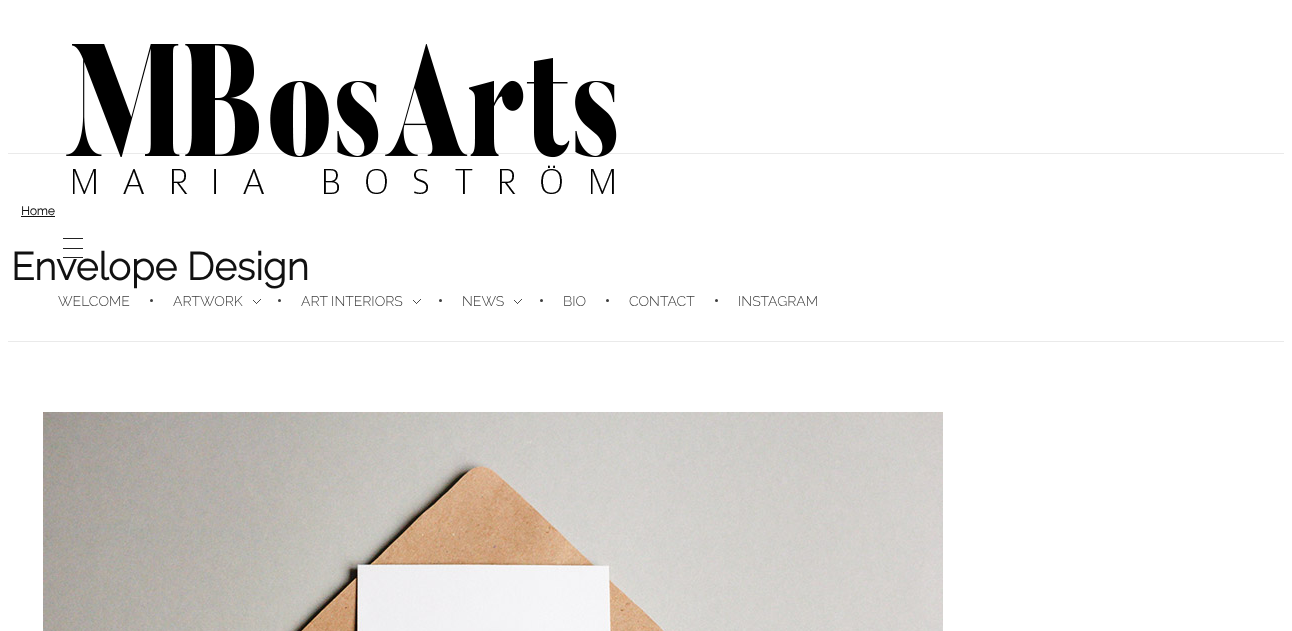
<svg xmlns="http://www.w3.org/2000/svg" width="1292" height="631" viewBox="0 0 1292 631">
  <rect width="100%" height="100%" fill="#ffffff"/>
  <rect x="8" y="341" width="1276" height="1" fill="#eaeaea"/>
  <text x="21" y="215" font-family="Raleway" font-size="12" font-weight="bold" fill="#111111">Home</text>
  <rect x="21" y="216" width="34" height="1" fill="#111111"/>
  <text x="11" y="280" font-family="Raleway" font-size="38.5" font-weight="bold" fill="#111111">Envelope Design</text>
  <rect x="8" y="153" width="1276" height="1" fill="#eaeaea"/>
  <image x="66" y="44" width="551" height="150" href="img1.png"/>
  <rect x="63" y="238" width="20" height="1" fill="#222222"/>
  <rect x="63" y="248" width="20" height="1" fill="#222222"/>
  <rect x="63" y="257" width="20" height="1" fill="#222222"/>
  <text x="58" y="306" font-family="Raleway" font-size="14" font-weight="300" fill="#3d3d3d">WELCOME</text>
  <circle cx="151.5" cy="300.5" r="1.5" fill="#3d3d3d"/>
  <text x="173" y="306" font-family="Raleway" font-size="14" font-weight="300" fill="#3d3d3d">ARTWORK</text>
  <image x="253" y="299" width="8" height="5" href="img2.png"/>
  <circle cx="279.5" cy="300.5" r="1.5" fill="#3d3d3d"/>
  <text x="301" y="306" font-family="Raleway" font-size="14" font-weight="300" fill="#3d3d3d">ART INTERIORS</text>
  <image x="413" y="299" width="8" height="5" href="img2.png"/>
  <circle cx="440.5" cy="300.5" r="1.5" fill="#3d3d3d"/>
  <text x="462" y="306" font-family="Raleway" font-size="14" font-weight="300" fill="#3d3d3d">NEWS</text>
  <image x="514" y="299" width="8" height="5" href="img2.png"/>
  <circle cx="541.5" cy="300.5" r="1.5" fill="#3d3d3d"/>
  <text x="563" y="306" font-family="Raleway" font-size="14" font-weight="300" fill="#3d3d3d">BIO</text>
  <circle cx="607.5" cy="300.5" r="1.5" fill="#3d3d3d"/>
  <text x="629" y="306" font-family="Raleway" font-size="14" font-weight="300" fill="#3d3d3d">CONTACT</text>
  <circle cx="716.5" cy="300.5" r="1.5" fill="#3d3d3d"/>
  <text x="738" y="306" font-family="Raleway" font-size="14" font-weight="300" fill="#3d3d3d">INSTAGRAM</text>
  <image x="43" y="412" width="900" height="219" href="img3.png"/>
</svg>
